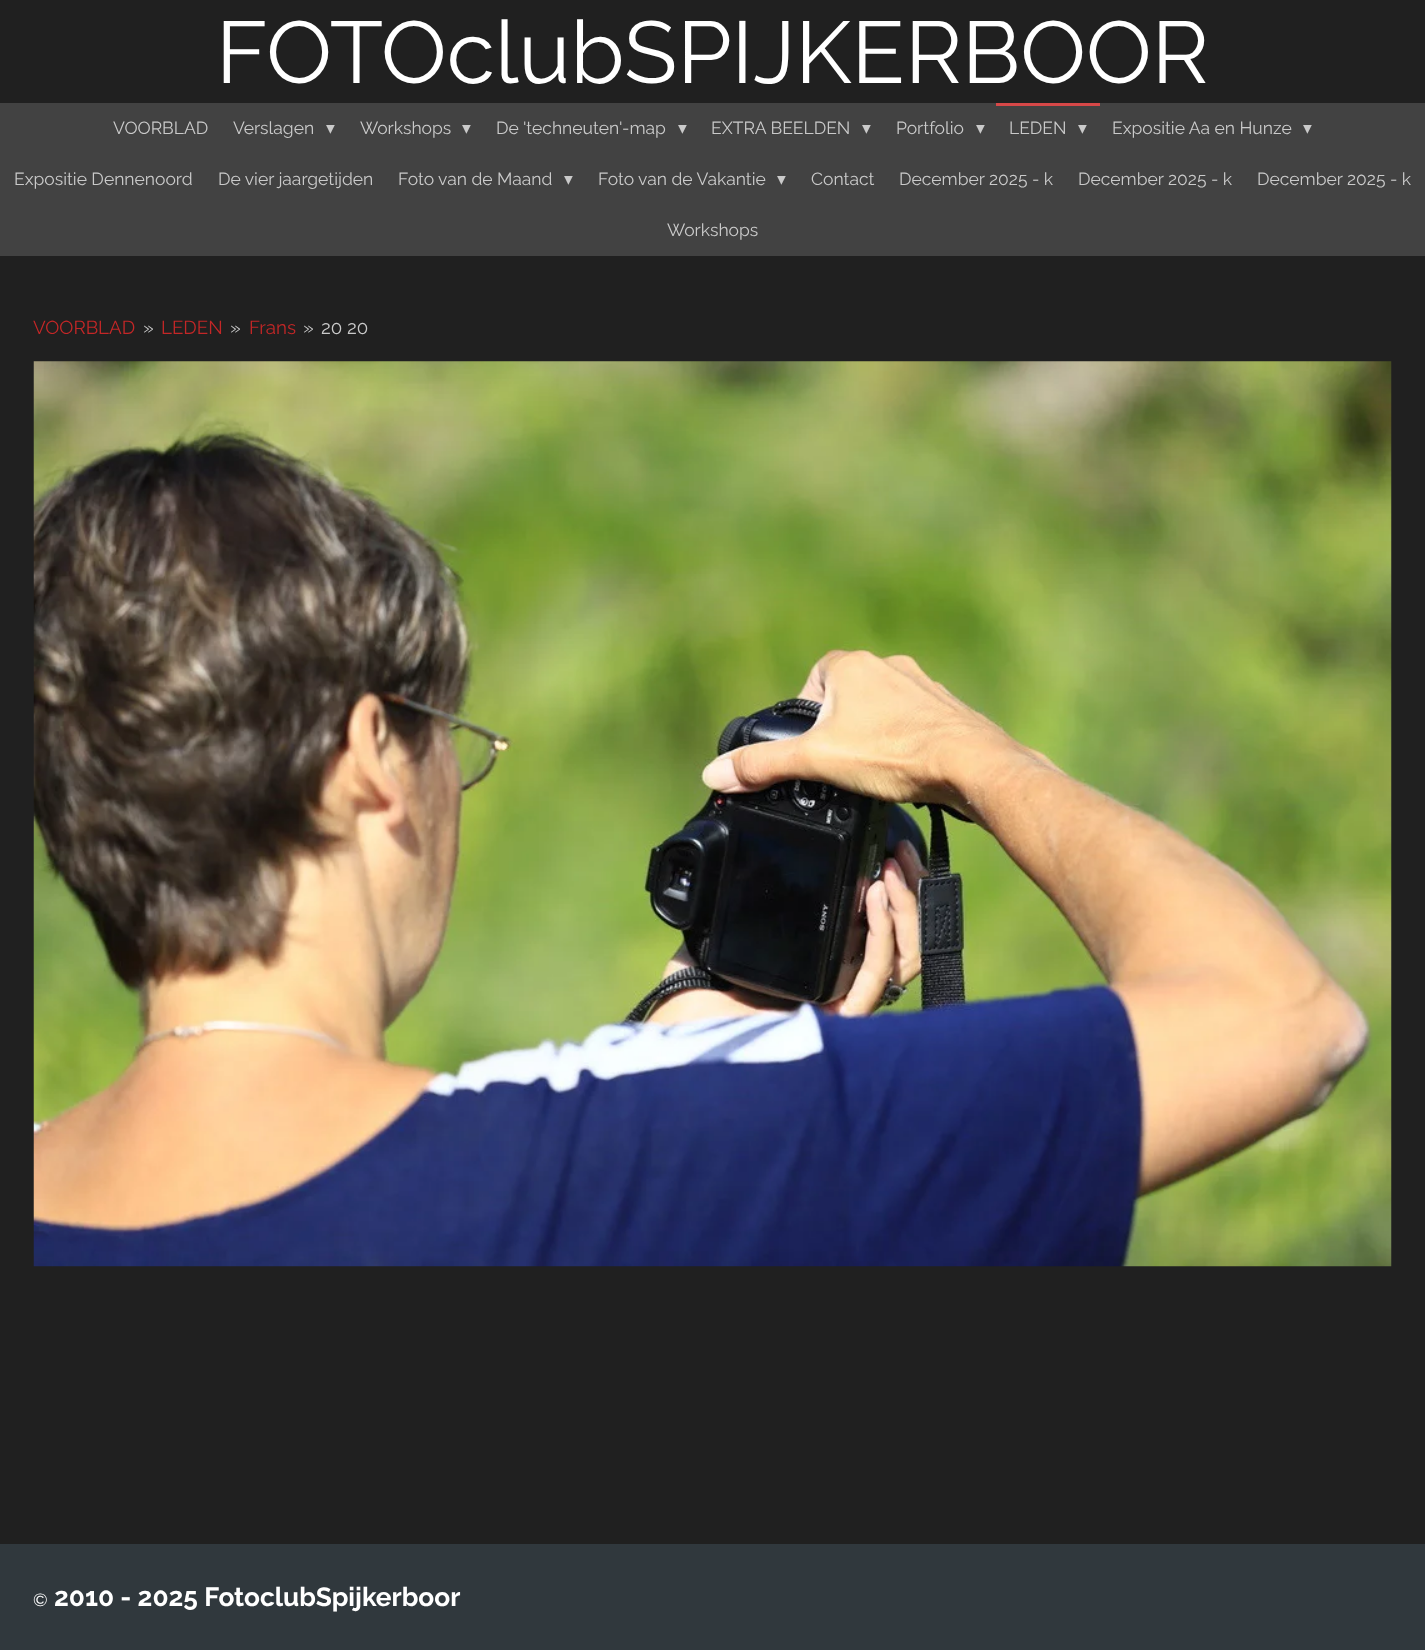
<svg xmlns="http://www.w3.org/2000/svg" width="1425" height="1650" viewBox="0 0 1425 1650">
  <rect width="100%" height="100%" fill="#202020"/>
  <text x="216" y="83" font-family="Raleway" font-size="87.5" fill="#ffffff">FOTOclubSPIJKERBOOR</text>
  <rect x="0" y="103" width="1425" height="153" fill="#424242"/>
  <text x="113" y="134" font-family="Raleway" font-size="17.5" fill="#cacaca">VOORBLAD</text>
  <text x="233" y="134" font-family="Raleway" font-size="17.5" fill="#cacaca">Verslagen</text>
  <text x="326" y="134" font-family="DejaVu Sans" font-size="17.5" fill="#cacaca">▾</text>
  <text x="360" y="134" font-family="Raleway" font-size="17.5" fill="#cacaca">Workshops</text>
  <text x="462" y="134" font-family="DejaVu Sans" font-size="17.5" fill="#cacaca">▾</text>
  <text x="496" y="134" font-family="Raleway" font-size="17.5" fill="#cacaca">De 'techneuten'-map</text>
  <text x="678" y="134" font-family="DejaVu Sans" font-size="17.5" fill="#cacaca">▾</text>
  <text x="711" y="134" font-family="Raleway" font-size="17.5" fill="#cacaca">EXTRA BEELDEN</text>
  <text x="862" y="134" font-family="DejaVu Sans" font-size="17.5" fill="#cacaca">▾</text>
  <text x="896" y="134" font-family="Raleway" font-size="17.5" fill="#cacaca">Portfolio</text>
  <text x="976" y="134" font-family="DejaVu Sans" font-size="17.5" fill="#cacaca">▾</text>
  <rect x="996" y="103" width="104" height="3" fill="#d74848"/>
  <text x="1009" y="134" font-family="Raleway" font-size="17.5" fill="#cacaca">LEDEN</text>
  <text x="1078" y="134" font-family="DejaVu Sans" font-size="17.5" fill="#cacaca">▾</text>
  <text x="1112" y="134" font-family="Raleway" font-size="17.5" fill="#cacaca">Expositie Aa en Hunze</text>
  <text x="1303" y="134" font-family="DejaVu Sans" font-size="17.5" fill="#cacaca">▾</text>
  <text x="14" y="185" font-family="Raleway" font-size="17.5" fill="#cacaca">Expositie Dennenoord</text>
  <text x="218" y="185" font-family="Raleway" font-size="17.5" fill="#cacaca">De vier jaargetijden</text>
  <text x="398" y="185" font-family="Raleway" font-size="17.5" fill="#cacaca">Foto van de Maand</text>
  <text x="564" y="185" font-family="DejaVu Sans" font-size="17.5" fill="#cacaca">▾</text>
  <text x="598" y="185" font-family="Raleway" font-size="17.5" fill="#cacaca">Foto van de Vakantie</text>
  <text x="777" y="185" font-family="DejaVu Sans" font-size="17.5" fill="#cacaca">▾</text>
  <text x="811" y="185" font-family="Raleway" font-size="17.5" fill="#cacaca">Contact</text>
  <text x="899" y="185" font-family="Raleway" font-size="17.5" fill="#cacaca">December 2025 - k</text>
  <text x="1078" y="185" font-family="Raleway" font-size="17.5" fill="#cacaca">December 2025 - k</text>
  <text x="1257" y="185" font-family="Raleway" font-size="17.5" fill="#cacaca">December 2025 - k</text>
  <text x="667" y="236" font-family="Raleway" font-size="17.5" fill="#cacaca">Workshops</text>
  <text x="33" y="334" font-family="Raleway" font-size="18.75" fill="#c42727">VOORBLAD</text>
  <text x="143" y="334" font-family="Raleway" font-size="18.75" fill="#cacaca">»</text>
  <text x="161" y="334" font-family="Raleway" font-size="18.75" fill="#c42727">LEDEN</text>
  <text x="230" y="334" font-family="Raleway" font-size="18.75" fill="#cacaca">»</text>
  <text x="249" y="334" font-family="Raleway" font-size="18.75" fill="#c42727">Frans</text>
  <text x="303" y="334" font-family="Raleway" font-size="18.75" fill="#cacaca">»</text>
  <text x="321" y="334" font-family="Raleway" font-size="18.75" fill="#cacaca">20 20</text>
  <image x="33" y="361" width="1359" height="906" href="img1.png"/>
  <rect x="0" y="1544" width="1425" height="106" fill="#30383d"/>
  <text x="33" y="1606" font-family="Raleway" font-size="17.5" fill="#ffffff">©</text>
  <text x="54" y="1606" font-family="Raleway" font-size="26.25" font-weight="bold" fill="#ffffff">2010 - 2025 FotoclubSpijkerboor</text>
</svg>
